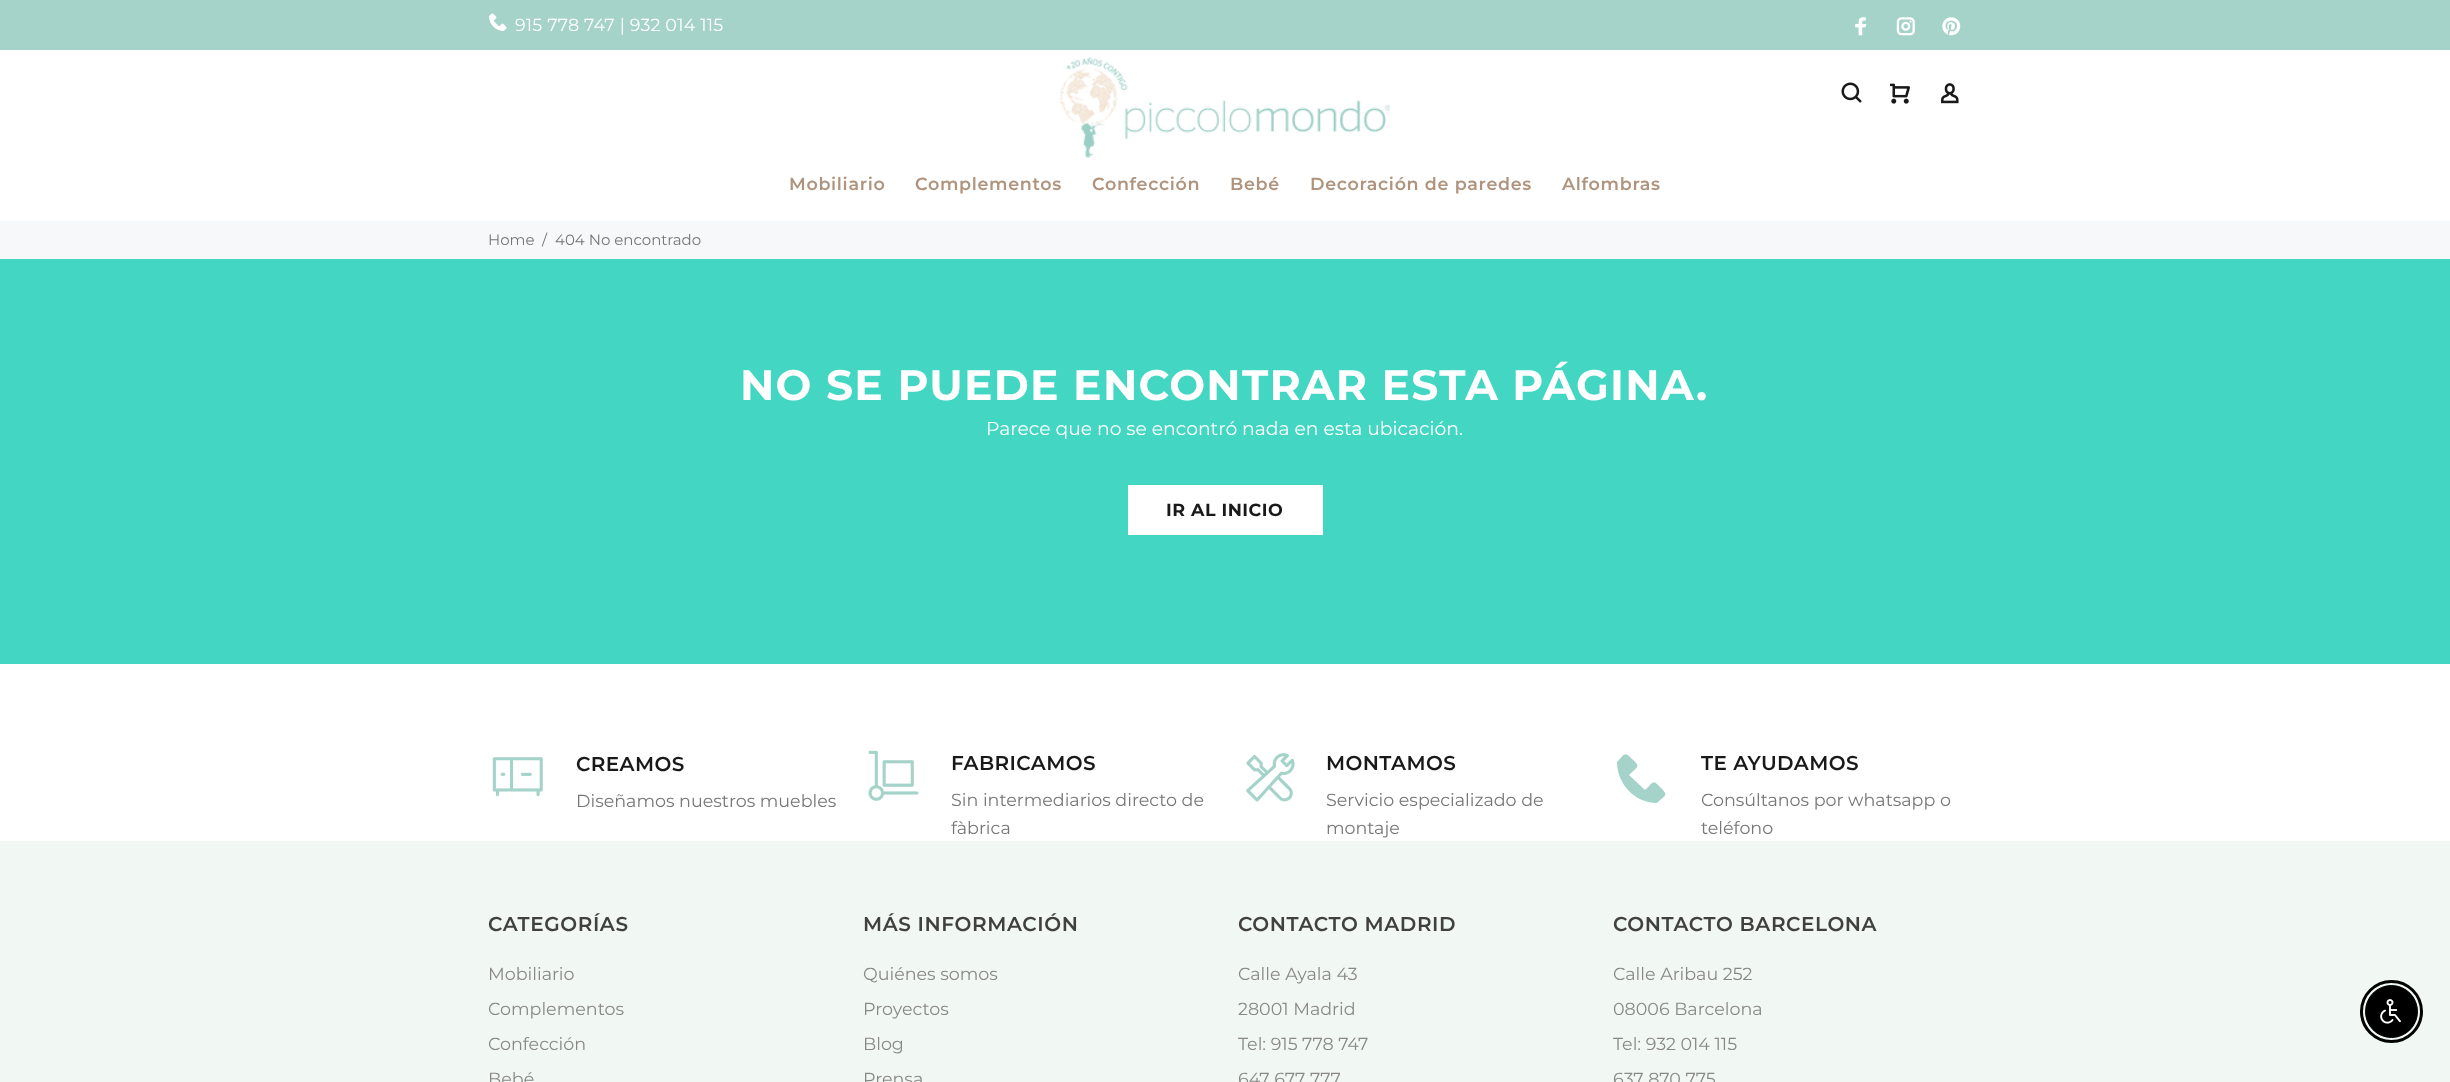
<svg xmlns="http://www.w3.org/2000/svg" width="2450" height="1082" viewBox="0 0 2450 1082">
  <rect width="100%" height="100%" fill="#ffffff"/>
  <rect x="0" y="0" width="2450" height="50" fill="#a5d3c9"/>
  <image x="489" y="13" width="18" height="18" href="img1.png"/>
  <text x="515" y="31" font-family="Montserrat" font-size="17.5" letter-spacing="0.2" fill="#ffffff">915 778 747 | 932 014 115</text>
  <image x="1855" y="17" width="12" height="19" href="img2.png"/>
  <image x="1896" y="17" width="19" height="19" href="img3.png"/>
  <image x="1942" y="17" width="19" height="19" href="img4.png"/>
  <image x="1060" y="57" width="330" height="101" href="img5.png"/>
  <image x="1841" y="82" width="21" height="21" href="img6.png"/>
  <image x="1890" y="83" width="20" height="21" href="img7.png"/>
  <image x="1941" y="83" width="18" height="21" href="img8.png"/>
  <text x="789" y="190" font-family="Montserrat" font-size="17.5" font-weight="600" letter-spacing="0.7" fill="#af937c">Mobiliario</text>
  <text x="915" y="190" font-family="Montserrat" font-size="17.5" font-weight="600" letter-spacing="0.7" fill="#af937c">Complementos</text>
  <text x="1092" y="190" font-family="Montserrat" font-size="17.5" font-weight="600" letter-spacing="0.7" fill="#af937c">Confección</text>
  <text x="1230" y="190" font-family="Montserrat" font-size="17.5" font-weight="600" letter-spacing="0.7" fill="#af937c">Bebé</text>
  <text x="1310" y="190" font-family="Montserrat" font-size="17.5" font-weight="600" letter-spacing="0.7" fill="#af937c">Decoración de paredes</text>
  <text x="1562" y="190" font-family="Montserrat" font-size="17.5" font-weight="600" letter-spacing="0.7" fill="#af937c">Alfombras</text>
  <rect x="0" y="221" width="2450" height="38" fill="#f7f8fa"/>
  <text x="488" y="245" font-family="Montserrat" font-size="15" fill="#777777">Home</text>
  <text x="542" y="245" font-family="Montserrat" font-size="15" fill="#777777">/</text>
  <text x="555" y="245" font-family="Montserrat" font-size="15" fill="#777777">404 No encontrado</text>
  <rect x="0" y="259" width="2450" height="405" fill="#42d6c3"/>
  <text x="740" y="400" font-family="Montserrat" font-size="42.5" font-weight="bold" letter-spacing="1.25" fill="#ffffff">NO SE PUEDE ENCONTRAR ESTA PÁGINA.</text>
  <text x="986" y="435" font-family="Montserrat" font-size="18.75" fill="#ffffff">Parece que no se encontró nada en esta ubicación.</text>
  <rect x="1128" y="485" width="195" height="50" fill="#ffffff"/>
  <text x="1166" y="516" font-family="Montserrat" font-size="17.5" font-weight="bold" letter-spacing="0.5" fill="#191919">IR AL INICIO</text>
  <image x="492" y="757" width="51" height="40" href="img9.png"/>
  <text x="576" y="771" font-family="Montserrat" font-size="20" font-weight="600" letter-spacing="0.4" fill="#191919">CREAMOS</text>
  <text x="576" y="807" font-family="Montserrat" font-size="17.5" fill="#777777">Diseñamos nuestros muebles</text>
  <image x="868" y="750" width="51" height="51" href="img10.png"/>
  <text x="951" y="770" font-family="Montserrat" font-size="20" font-weight="600" letter-spacing="0.4" fill="#191919">FABRICAMOS</text>
  <text x="951" y="806" font-family="Montserrat" font-size="17.5" fill="#777777">Sin intermediarios directo de</text>
  <text x="951" y="834" font-family="Montserrat" font-size="17.5" fill="#777777">fàbrica</text>
  <image x="1246" y="753" width="49" height="49" href="img11.png"/>
  <text x="1326" y="770" font-family="Montserrat" font-size="20" font-weight="600" letter-spacing="0.4" fill="#191919">MONTAMOS</text>
  <text x="1326" y="806" font-family="Montserrat" font-size="17.5" fill="#777777">Servicio especializado de</text>
  <text x="1326" y="834" font-family="Montserrat" font-size="17.5" fill="#777777">montaje</text>
  <path d="M1657 803C1635 803 1617 784 1617 762C1625 754 1624 751 1632 759C1641 767 1638 766 1629 775L1645 790C1654 782 1652 779 1660 787C1669 796 1666 794 1657 803Z" fill="#a6d3c9"/>
  <text x="1701" y="770" font-family="Montserrat" font-size="20" font-weight="600" letter-spacing="0.4" fill="#191919">TE AYUDAMOS</text>
  <text x="1701" y="806" font-family="Montserrat" font-size="17.5" fill="#777777">Consúltanos por whatsapp o</text>
  <text x="1701" y="834" font-family="Montserrat" font-size="17.5" fill="#777777">teléfono</text>
  <rect x="0" y="841" width="2450" height="241" fill="#f1f8f3"/>
  <text x="488" y="931" font-family="Montserrat" font-size="20" font-weight="600" letter-spacing="0.6" fill="#404040">CATEGORÍAS</text>
  <text x="488" y="980" font-family="Montserrat" font-size="17.5" fill="#888888">Mobiliario</text>
  <text x="488" y="1015" font-family="Montserrat" font-size="17.5" fill="#888888">Complementos</text>
  <text x="488" y="1050" font-family="Montserrat" font-size="17.5" fill="#888888">Confección</text>
  <text x="488" y="1085" font-family="Montserrat" font-size="17.5" fill="#888888">Bebé</text>
  <text x="863" y="931" font-family="Montserrat" font-size="20" font-weight="600" letter-spacing="0.6" fill="#404040">MÁS INFORMACIÓN</text>
  <text x="863" y="980" font-family="Montserrat" font-size="17.5" fill="#888888">Quiénes somos</text>
  <text x="863" y="1015" font-family="Montserrat" font-size="17.5" fill="#888888">Proyectos</text>
  <text x="863" y="1050" font-family="Montserrat" font-size="17.5" fill="#888888">Blog</text>
  <text x="863" y="1085" font-family="Montserrat" font-size="17.5" fill="#888888">Prensa</text>
  <text x="1238" y="931" font-family="Montserrat" font-size="20" font-weight="600" letter-spacing="0.6" fill="#404040">CONTACTO MADRID</text>
  <text x="1238" y="980" font-family="Montserrat" font-size="17.5" fill="#888888">Calle Ayala 43</text>
  <text x="1238" y="1015" font-family="Montserrat" font-size="17.5" fill="#888888">28001 Madrid</text>
  <text x="1238" y="1050" font-family="Montserrat" font-size="17.5" fill="#888888">Tel: 915 778 747</text>
  <text x="1238" y="1085" font-family="Montserrat" font-size="17.5" fill="#888888">647 677 777</text>
  <text x="1613" y="931" font-family="Montserrat" font-size="20" font-weight="600" letter-spacing="0.6" fill="#404040">CONTACTO BARCELONA</text>
  <text x="1613" y="980" font-family="Montserrat" font-size="17.5" fill="#888888">Calle Aribau 252</text>
  <text x="1613" y="1015" font-family="Montserrat" font-size="17.5" fill="#888888">08006 Barcelona</text>
  <text x="1613" y="1050" font-family="Montserrat" font-size="17.5" fill="#888888">Tel: 932 014 115</text>
  <text x="1613" y="1085" font-family="Montserrat" font-size="17.5" fill="#888888">637 870 775</text>
  <circle cx="2391.5" cy="1011.5" r="30" fill="none" stroke="#000000" stroke-width="3"/>
  <circle cx="2391.5" cy="1011.5" r="26" fill="#000000" stroke="#000000"/>
  <image x="2380" y="999" width="21" height="25" href="img12.png"/>
</svg>
